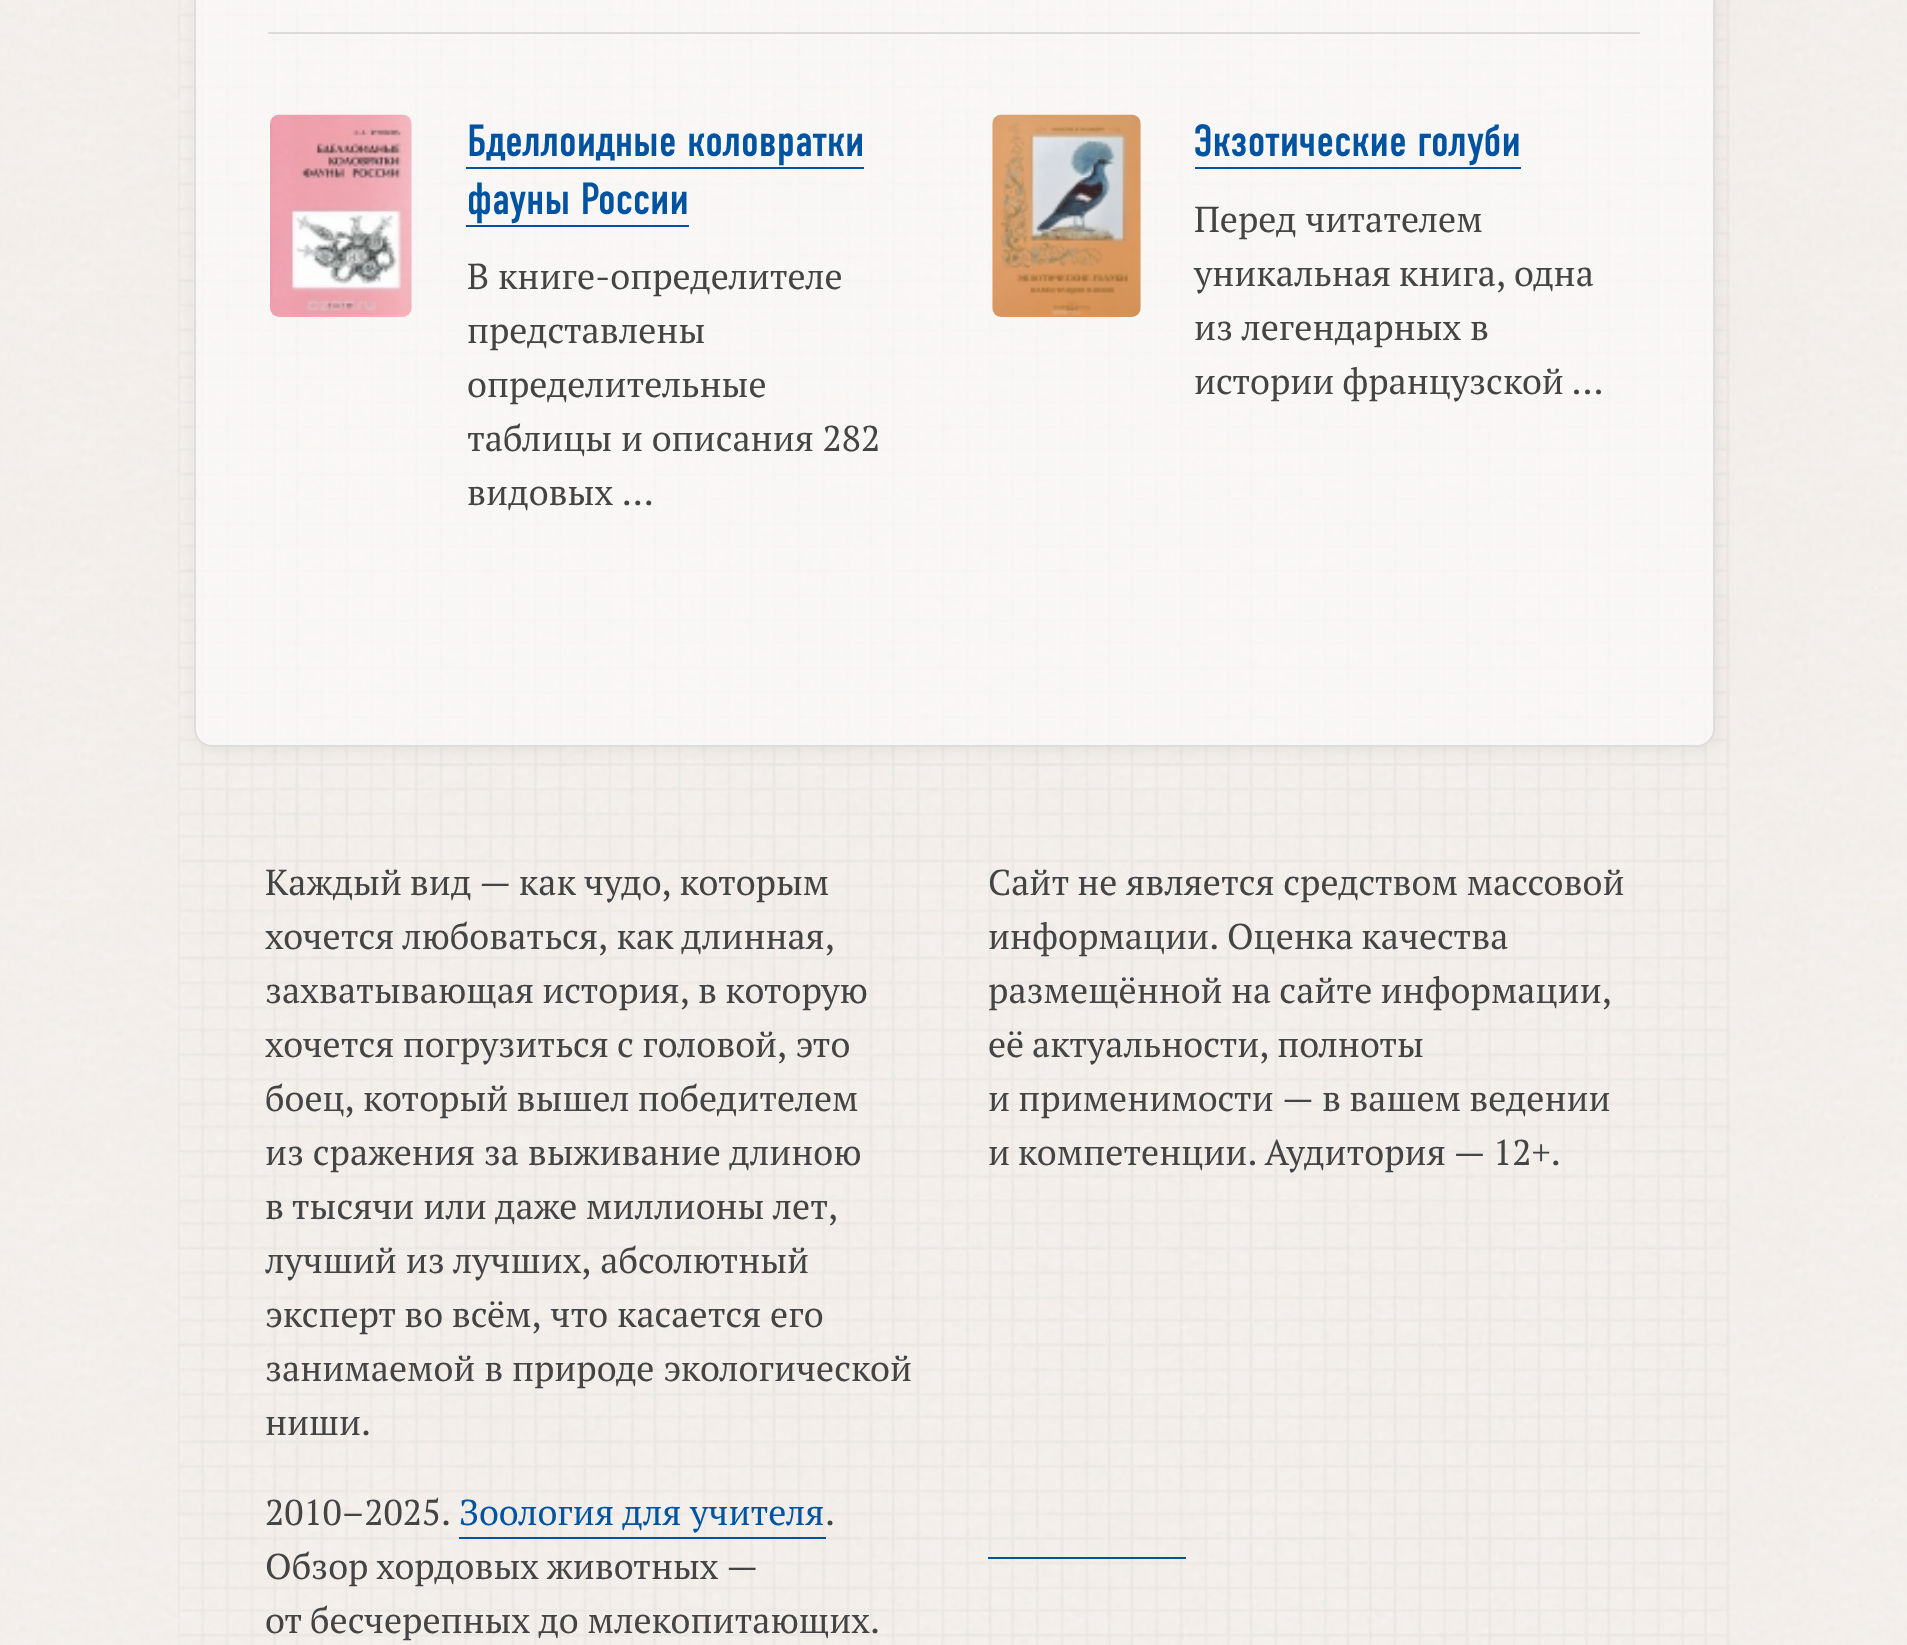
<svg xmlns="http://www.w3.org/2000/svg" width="1907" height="1645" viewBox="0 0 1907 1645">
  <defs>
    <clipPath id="clip1"><path d="M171 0H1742V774H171ZM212-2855H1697C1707-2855 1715-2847 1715-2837V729C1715 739 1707 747 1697 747H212C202 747 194 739 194 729V-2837C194-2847 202-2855 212-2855Z" clip-rule="evenodd"/></clipPath>
    <filter id="blur1" x="-50%" y="-200%" width="200%" height="500%"><feGaussianBlur stdDeviation="8"/></filter>
  </defs>
  <rect width="100%" height="100%" fill="#ffffff"/>
  <image x="0" y="0" width="1907" height="1645" href="img1.png"/>
  <image x="178" y="0" width="1552" height="1645" href="img2.png"/>
  <g clip-path="url(#clip1)">
    <rect x="196" y="-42" width="1521" height="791" rx="18" fill="#999999" fill-opacity="0.2" filter="url(#blur1)"/>
  </g>
  <image x="193" y="0" width="1522" height="747" href="img3.png"/>
  <rect x="195" y="-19" width="1519" height="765" rx="17" fill="none" stroke="#dddddd" stroke-width="2"/>
  <rect x="268" y="32" width="1372" height="2" fill="#dddbda"/>
  <image x="270" y="114" width="142" height="203" href="img4.png"/>
  <text x="467" y="156" font-family="din" font-size="45" fill="#0053a0">Бделлоидные коловратки</text>
  <rect x="466" y="167" width="398" height="2" fill="#0053a0"/>
  <text x="467" y="214" font-family="din" font-size="45" fill="#0053a0">фауны России</text>
  <rect x="466" y="225" width="223" height="2" fill="#0053a0"/>
  <text x="467" y="289" font-family="PT Serif" font-size="36" fill="#444444">В книге-определителе</text>
  <text x="467" y="343" font-family="PT Serif" font-size="36" fill="#444444">представлены</text>
  <text x="467" y="397" font-family="PT Serif" font-size="36" fill="#444444">определительные</text>
  <text x="467" y="451" font-family="PT Serif" font-size="36" fill="#444444">таблицы и описания 282</text>
  <text x="467" y="505" font-family="PT Serif" font-size="36" fill="#444444">видовых ...</text>
  <image x="992" y="114" width="149" height="203" href="img5.png"/>
  <text x="1194" y="156" font-family="din" font-size="45" fill="#0053a0">Экзотические голуби</text>
  <rect x="1195" y="167" width="326" height="2" fill="#0053a0"/>
  <text x="1194" y="232" font-family="PT Serif" font-size="36" fill="#444444">Перед читателем</text>
  <text x="1194" y="286" word-spacing="-1" font-family="PT Serif" font-size="36" fill="#444444">уникальная книга, одна</text>
  <text x="1194" y="340" font-family="PT Serif" font-size="36" fill="#444444">из легендарных в</text>
  <text x="1194" y="394" word-spacing="-1" font-family="PT Serif" font-size="36" fill="#444444">истории французской ...</text>
  <text x="265" y="895" word-spacing="-1" font-family="PT Serif" font-size="36" fill="#444444">Каждый вид — как чудо, которым</text>
  <text x="265" y="949" word-spacing="-0.5" font-family="PT Serif" font-size="36" fill="#444444">хочется любоваться, как длинная,</text>
  <text x="265" y="1003" word-spacing="-0.5" font-family="PT Serif" font-size="36" fill="#444444">захватывающая история, в которую</text>
  <text x="265" y="1057" word-spacing="-0.5" font-family="PT Serif" font-size="36" fill="#444444">хочется погрузиться с головой, это</text>
  <text x="265" y="1111" word-spacing="-0.5" font-family="PT Serif" font-size="36" fill="#444444">боец, который вышел победителем</text>
  <text x="265" y="1165" font-family="PT Serif" font-size="36" fill="#444444">из сражения за выживание длиною</text>
  <text x="265" y="1219" font-family="PT Serif" font-size="36" fill="#444444">в тысячи или даже миллионы лет,</text>
  <text x="265" y="1273" font-family="PT Serif" font-size="36" fill="#444444">лучший из лучших, абсолютный</text>
  <text x="265" y="1327" font-family="PT Serif" font-size="36" fill="#444444">эксперт во всём, что касается его</text>
  <text x="265" y="1381" font-family="PT Serif" font-size="36" fill="#444444">занимаемой в природе экологической</text>
  <text x="265" y="1435" font-family="PT Serif" font-size="36" fill="#444444">ниши.</text>
  <text x="988" y="895" font-family="PT Serif" font-size="36" fill="#444444">Сайт не является средством массовой</text>
  <text x="988" y="949" word-spacing="-1" font-family="PT Serif" font-size="36" fill="#444444">информации. Оценка качества</text>
  <text x="988" y="1003" word-spacing="-0.5" font-family="PT Serif" font-size="36" fill="#444444">размещённой на сайте информации,</text>
  <text x="988" y="1057" word-spacing="-1" font-family="PT Serif" font-size="36" fill="#444444">её актуальности, полноты</text>
  <text x="988" y="1111" word-spacing="-0.5" font-family="PT Serif" font-size="36" fill="#444444">и применимости — в вашем ведении</text>
  <text x="988" y="1165" word-spacing="-1" font-family="PT Serif" font-size="36" fill="#444444">и компетенции. Аудитория — 12+.</text>
  <text x="265" y="1525" font-family="PT Serif" font-size="36" fill="#444444">2010–2025.</text>
  <text x="459" y="1525" font-family="PT Serif" font-size="36" fill="#0053a0">Зоология для учителя</text>
  <rect x="459" y="1537" width="367" height="2" fill="#0053a0"/>
  <text x="825" y="1525" font-family="PT Serif" font-size="36" fill="#444444">.</text>
  <text x="265" y="1579" word-spacing="-1" font-family="PT Serif" font-size="36" fill="#444444">Обзор хордовых животных —</text>
  <text x="265" y="1633" font-family="PT Serif" font-size="36" fill="#444444">от бесчерепных до млекопитающих.</text>
  <rect x="988" y="1557" width="198" height="2" fill="#0053a0"/>
</svg>
